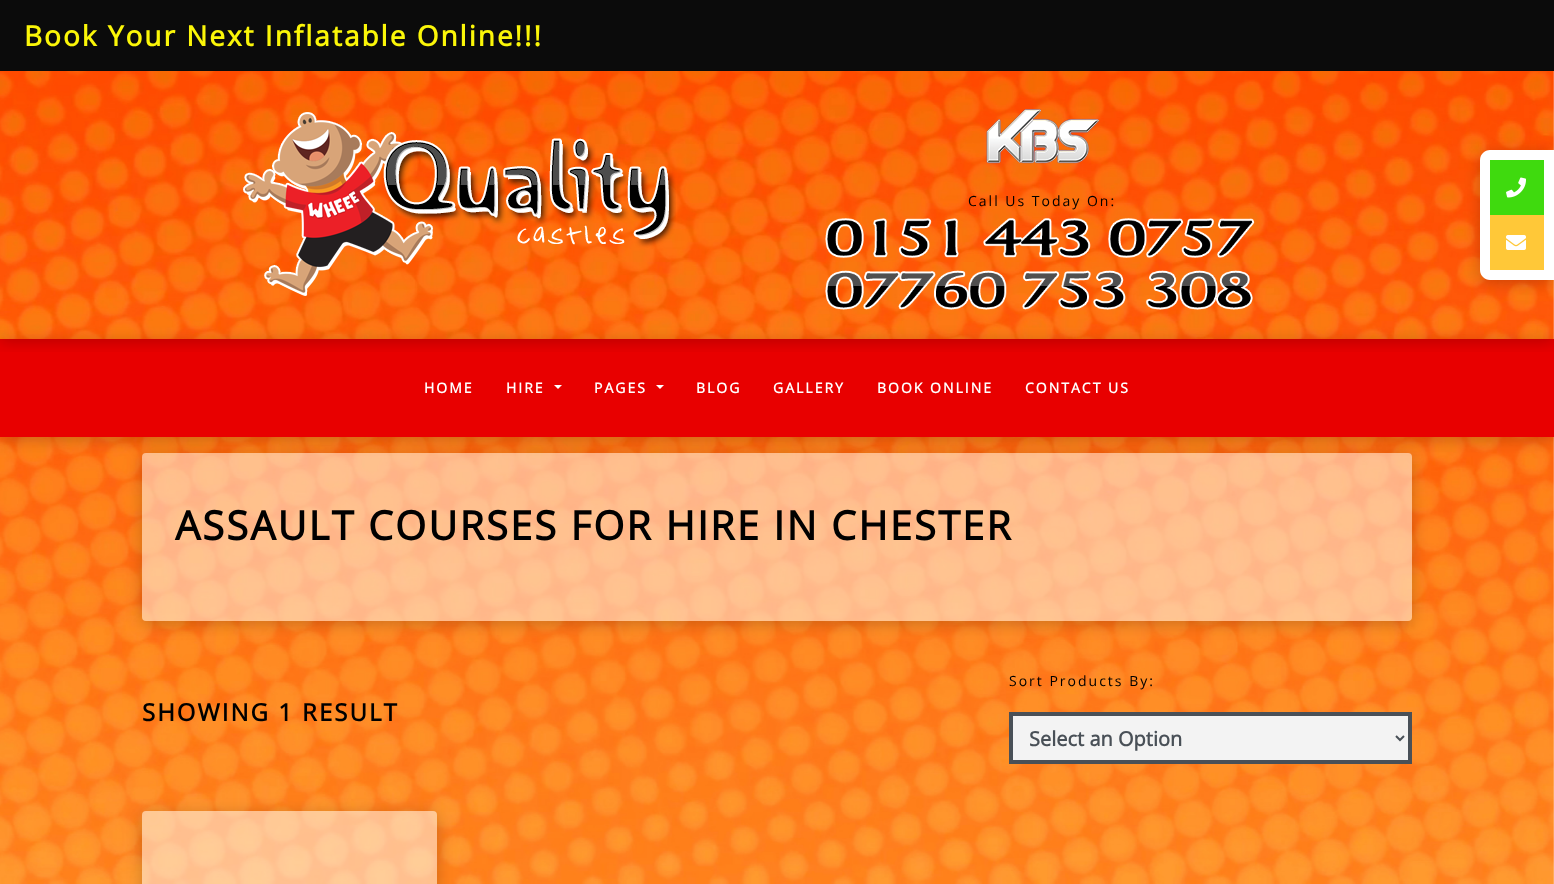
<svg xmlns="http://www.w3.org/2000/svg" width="1554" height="884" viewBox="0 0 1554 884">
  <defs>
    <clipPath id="clip1"><path d="M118 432H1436V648H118ZM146 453H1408C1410 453 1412 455 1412 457V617C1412 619 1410 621 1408 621H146C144 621 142 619 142 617V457C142 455 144 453 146 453Z" clip-rule="evenodd"/></clipPath>
    <filter id="blur1" x="-50%" y="-200%" width="200%" height="500%"><feGaussianBlur stdDeviation="7.5"/></filter>
    <clipPath id="clip2"><rect x="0" y="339" width="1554" height="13"/></clipPath>
    <clipPath id="clip3"><path d="M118 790H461V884H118ZM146 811H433C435 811 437 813 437 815V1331C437 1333 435 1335 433 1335H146C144 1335 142 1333 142 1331V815C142 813 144 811 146 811Z" clip-rule="evenodd"/></clipPath>
  </defs>
  <rect width="100%" height="100%" fill="#ffffff"/>
  <image x="0" y="71" width="1554" height="813" href="img1.png"/>
  <g clip-path="url(#clip1)">
    <rect x="142" y="456" width="1270" height="168" rx="4" fill="#000000" fill-opacity="0.2" filter="url(#blur1)"/>
  </g>
  <rect x="142" y="453" width="1270" height="168" rx="4" fill="#ffffff" fill-opacity="0.5"/>
  <rect x="0" y="342" width="1554" height="98" fill="#000000" fill-opacity="0.2" filter="url(#blur1)"/>
  <rect x="0" y="339" width="1554" height="98" fill="#e80000"/>
  <g clip-path="url(#clip2)">
    <rect x="0" y="3" width="1554" height="339" fill="#000000" fill-opacity="0.2" filter="url(#blur1)"/>
  </g>
  <rect x="0" y="0" width="1554" height="71" fill="#0b0b0b"/>
  <text x="24" y="46" font-family="Open Sans" font-size="28" font-weight="bold" letter-spacing="2" fill="#fbf608">Book Your Next Inflatable Online!!!</text>
  <image x="243" y="112" width="433" height="184" href="img2.png"/>
  <image x="986" y="109" width="113" height="55" href="img3.png"/>
  <text x="968" y="206" font-family="Open Sans" font-size="14" letter-spacing="2" fill="#000000">Call Us Today On:</text>
  <image x="825" y="218" width="430" height="40" href="img4.png"/>
  <image x="825" y="270" width="428" height="40" href="img5.png"/>
  <rect x="1480" y="153" width="74" height="130" rx="10" fill="#000000" fill-opacity="0.2" filter="url(#blur1)"/>
  <path d="M1490 150H1554V280H1490C1484.5 280 1480 275.5 1480 270V160C1480 154.5 1484.5 150 1490 150Z" fill="#ffffff"/>
  <rect x="1490" y="160" width="54" height="55" fill="#3fda0e"/>
  <image x="1506" y="177" width="20" height="21" href="img6.png"/>
  <rect x="1490" y="215" width="54" height="55" fill="#ffc838"/>
  <image x="1506" y="235" width="20" height="15" href="img7.png"/>
  <text x="424" y="393" font-family="Open Sans" font-size="14" font-weight="bold" letter-spacing="2" fill="#ffffff">HOME</text>
  <text x="506" y="393" font-family="Open Sans" font-size="14" font-weight="bold" letter-spacing="2" fill="#ffffff">HIRE</text>
  <path d="M554 385H562L558 389Z" fill="#ffffff"/>
  <text x="594" y="393" font-family="Open Sans" font-size="14" font-weight="bold" letter-spacing="2" fill="#ffffff">PAGES</text>
  <path d="M656 385H664L660 389Z" fill="#ffffff"/>
  <text x="696" y="393" font-family="Open Sans" font-size="14" font-weight="bold" letter-spacing="2" fill="#ffffff">BLOG</text>
  <text x="773" y="393" font-family="Open Sans" font-size="14" font-weight="bold" letter-spacing="2" fill="#ffffff">GALLERY</text>
  <text x="877" y="393" font-family="Open Sans" font-size="14" font-weight="bold" letter-spacing="2" fill="#ffffff">BOOK ONLINE</text>
  <text x="1025" y="393" font-family="Open Sans" font-size="14" font-weight="bold" letter-spacing="2" fill="#ffffff">CONTACT US</text>
  <text x="175" y="540" font-family="Open Sans" font-size="40" font-weight="bold" letter-spacing="2" fill="#000000">ASSAULT COURSES FOR HIRE IN CHESTER</text>
  <text x="142" y="721" font-family="Open Sans" font-size="24" font-weight="bold" letter-spacing="2" fill="#000000">SHOWING 1 RESULT</text>
  <text x="1009" y="686" font-family="Open Sans" font-size="14" letter-spacing="2" fill="#000000">Sort Products By:</text>
  <rect x="1011" y="714" width="399" height="48" fill="#f3f3f3" stroke="#495057" stroke-width="4"/>
  <path d="M1396 736L1400 740L1404 736" fill="none" stroke="#495057" stroke-width="2"/>
  <text x="1029" y="746" font-family="Open Sans" font-size="20" font-weight="bold" fill="#495057">Select an Option</text>
  <g clip-path="url(#clip3)">
    <rect x="142" y="814" width="295" height="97" rx="4" fill="#000000" fill-opacity="0.2" filter="url(#blur1)"/>
  </g>
  <rect x="142" y="811" width="295" height="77" rx="4" fill="#ffffff" fill-opacity="0.5"/>
</svg>
